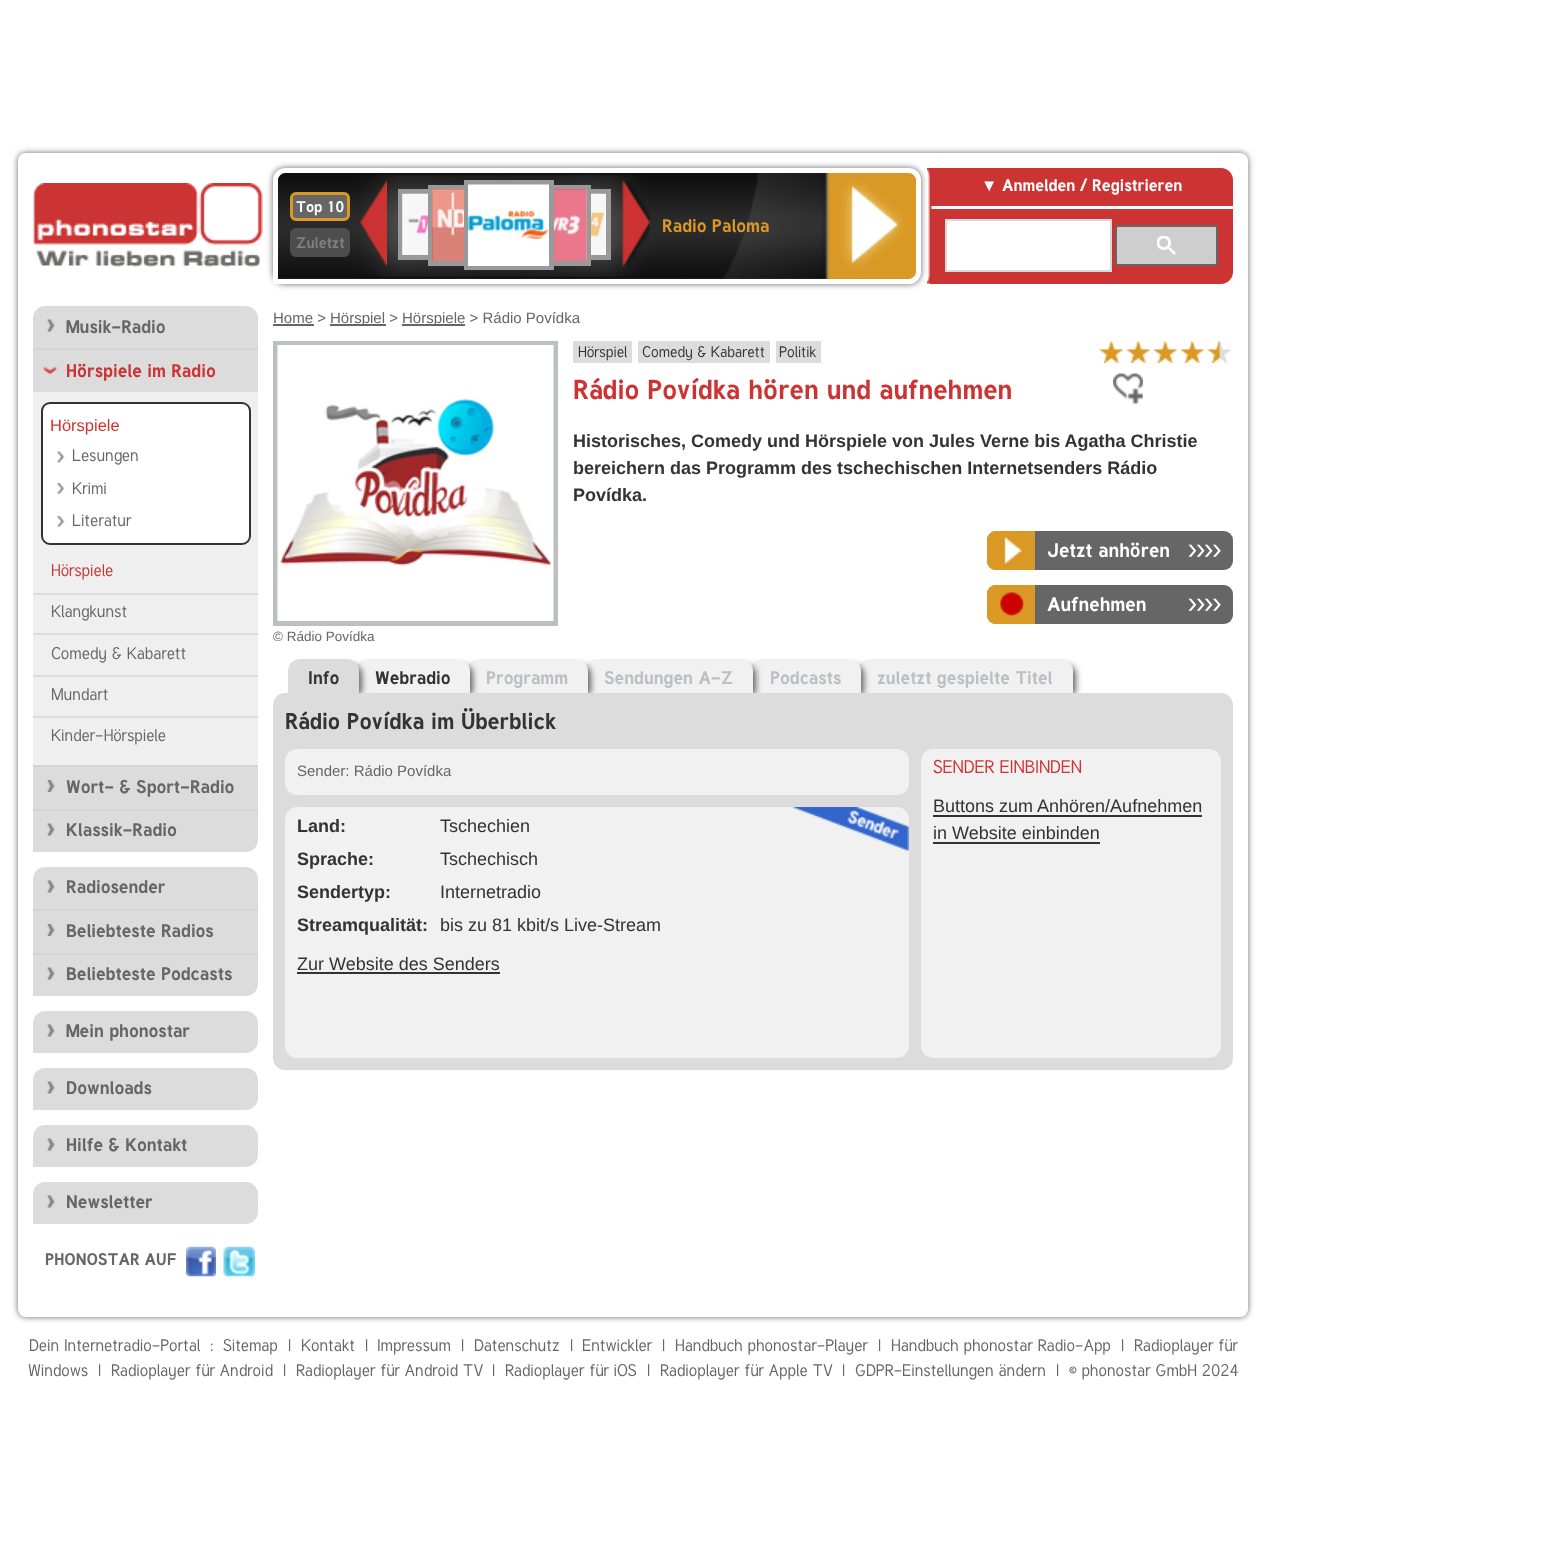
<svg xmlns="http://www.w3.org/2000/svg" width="1554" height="1543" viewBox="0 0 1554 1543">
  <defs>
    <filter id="blur1" x="-50%" y="-200%" width="200%" height="500%"><feGaussianBlur stdDeviation="3"/></filter>
    <clipPath id="clip1"><rect x="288" y="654" width="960" height="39"/></clipPath>
  </defs>
  <rect width="100%" height="100%" fill="#ffffff"/>
  <rect x="18" y="153" width="1230" height="1164" rx="8" fill="#666666" filter="url(#blur1)"/>
  <rect x="18" y="153" width="1230" height="1164" rx="8" fill="#ffffff"/>
  <image x="33" y="183" width="230" height="84" href="img1.png"/>
  <rect x="273" y="168" width="648" height="116" rx="12" fill="#666666" filter="url(#blur1)"/>
  <image x="277" y="168" width="639" height="111" href="img2.png"/>
  <path d="M285 170.5H909C914 170.5 918.5 175 918.5 180V272C918.5 277 914 281.5 909 281.5H275.5V180C275.5 175 280 170.5 285 170.5Z" fill="none" stroke="#ffffff" stroke-width="5"/>
  <rect x="291.5" y="193.5" width="57" height="26" rx="4.5" fill="#666666" stroke="#da9925" stroke-width="3"/>
  <text x="296" y="212" font-family="Tuffy" font-size="15" font-weight="bold" fill="#ffffff">Top 10</text>
  <rect x="291.5" y="229.5" width="57" height="26" rx="4.5" fill="#4d4d4d" stroke="#4d4d4d" stroke-width="3"/>
  <text x="296" y="248" font-family="Tuffy" font-size="15" font-weight="bold" fill="#808080">Zuletzt</text>
  <image x="360" y="180" width="27" height="87" href="img3.png"/>
  <rect x="403" y="194" width="25" height="61" fill="#dcdcdc"/>
  <rect x="400.5" y="191.5" width="65" height="66" fill="none" stroke="#999999" stroke-width="5"/>
  <rect x="433" y="190" width="31" height="71" fill="#dcdcdc"/>
  <rect x="430.5" y="187.5" width="76" height="76" fill="none" stroke="#999999" stroke-width="5"/>
  <rect x="542.5" y="191.5" width="66" height="66" fill="none" stroke="#999999" stroke-width="5"/>
  <rect x="554" y="190" width="32" height="71" fill="#dcdcdc"/>
  <rect x="512.5" y="187.5" width="76" height="76" fill="none" stroke="#999999" stroke-width="5"/>
  <rect x="466.5" y="182.5" width="85" height="85" fill="none" stroke="#999999" stroke-width="5"/>
  <rect x="468" y="241" width="81" height="25" fill="#ffffff"/>
  <image x="468" y="184" width="81" height="57" href="img4.png"/>
  <rect x="432" y="189" width="32" height="72" fill="#ffffff" fill-opacity="0.5"/>
  <image x="432" y="189" width="32" height="72" href="img5.png"/>
  <rect x="554" y="189" width="33" height="72" fill="#ffffff" fill-opacity="0.5"/>
  <image x="554" y="189" width="33" height="72" href="img6.png"/>
  <rect x="402" y="194" width="26" height="61" fill="#ffffff" fill-opacity="0.5"/>
  <image x="402" y="193" width="26" height="62" href="img7.png"/>
  <rect x="591" y="194" width="15" height="61" fill="#eeeeee"/>
  <image x="591" y="193" width="15" height="62" href="img8.png"/>
  <image x="622" y="180" width="28" height="88" href="img9.png"/>
  <text x="662" y="232" font-family="Tuffy" font-size="18" font-weight="bold" fill="#da9925">Radio Paloma</text>
  <path d="M930 168H1221C1227.5 168 1233 173.5 1233 180V272C1233 278.5 1227.5 284 1221 284H930Z" fill="#cc3333"/>
  <rect x="930" y="206" width="303" height="3" fill="#ffffff"/>
  <image x="927" y="168" width="5" height="116" href="img10.png"/>
  <text x="981" y="191" font-family="Liberation Sans" font-size="16.5" fill="#ffffff">▼</text>
  <text x="1002" y="191" font-family="Tuffy" font-size="16.5" font-weight="bold" fill="#ffffff">Anmelden / Registrieren</text>
  <rect x="946" y="220" width="165" height="51" fill="#ffffff" stroke="#d9d9d9" stroke-width="2"/>
  <rect x="1116" y="226" width="101" height="39" rx="2" fill="#cecece" stroke="#666666" stroke-width="2"/>
  <image x="1157" y="236" width="19" height="19" href="img11.png"/>
  <path d="M45 306H246C252.5 306 258 311.5 258 318V840C258 846.5 252.5 852 246 852H33V318C33 311.5 38.5 306 45 306Z" fill="#dcdcdc"/>
  <rect x="33" y="348" width="225" height="2" fill="#d3d3d3"/>
  <image x="46" y="319" width="9" height="13" href="img12.png"/>
  <text x="66" y="333" font-family="Tuffy" font-size="18" font-weight="bold" fill="#666666">Musik-Radio</text>
  <rect x="33" y="765" width="225" height="2" fill="#d3d3d3"/>
  <image x="43" y="366" width="14" height="9" href="img13.png"/>
  <text x="66" y="377" font-family="Tuffy" font-size="18" font-weight="bold" fill="#cc3333">Hörspiele im Radio</text>
  <rect x="33" y="392" width="225" height="373" fill="#efefef"/>
  <rect x="33" y="593" width="225" height="2" fill="#dcdcdc"/>
  <rect x="42" y="403" width="208" height="141" rx="8" fill="#ffffff" stroke="#333333" stroke-width="2"/>
  <text x="50" y="431" font-family="Liberation Sans" font-size="16.5" fill="#cc3333">Hörspiele</text>
  <image x="57" y="451" width="8" height="13" href="img14.png"/>
  <text x="72" y="461" font-family="Tuffy" font-size="16.5" fill="#666666">Lesungen</text>
  <image x="57" y="483" width="8" height="12" href="img15.png"/>
  <text x="72" y="494" font-family="Tuffy" font-size="16.5" fill="#666666">Krimi</text>
  <image x="57" y="516" width="8" height="12" href="img15.png"/>
  <text x="72" y="526" font-family="Tuffy" font-size="16.5" fill="#666666">Literatur</text>
  <text x="51" y="576" font-family="Tuffy" font-size="16.5" fill="#cc3333">Hörspiele</text>
  <rect x="33" y="633" width="225" height="2" fill="#dcdcdc"/>
  <text x="51" y="617" font-family="Tuffy" font-size="16.5" fill="#666666">Klangkunst</text>
  <rect x="33" y="675" width="225" height="2" fill="#dcdcdc"/>
  <text x="51" y="659" font-family="Tuffy" font-size="16.5" fill="#666666">Comedy &amp; Kabarett</text>
  <rect x="33" y="716" width="225" height="2" fill="#dcdcdc"/>
  <text x="51" y="700" font-family="Tuffy" font-size="16.5" fill="#666666">Mundart</text>
  <text x="51" y="741" font-family="Tuffy" font-size="16.5" fill="#666666">Kinder-Hörspiele</text>
  <rect x="33" y="809" width="225" height="2" fill="#d3d3d3"/>
  <image x="46" y="780" width="9" height="12" href="img16.png"/>
  <text x="66" y="793" font-family="Tuffy" font-size="18" font-weight="bold" fill="#666666">Wort- &amp; Sport-Radio</text>
  <image x="46" y="823" width="9" height="13" href="img12.png"/>
  <text x="66" y="836" font-family="Tuffy" font-size="18" font-weight="bold" fill="#666666">Klassik-Radio</text>
  <path d="M45 867H246C252.5 867 258 872.5 258 879V984C258 990.5 252.5 996 246 996H33V879C33 872.5 38.5 867 45 867Z" fill="#dcdcdc"/>
  <rect x="33" y="909" width="225" height="2" fill="#d3d3d3"/>
  <image x="46" y="880" width="9" height="13" href="img12.png"/>
  <text x="66" y="893" font-family="Tuffy" font-size="18" font-weight="bold" fill="#666666">Radiosender</text>
  <rect x="33" y="953" width="225" height="2" fill="#d3d3d3"/>
  <image x="46" y="924" width="9" height="12" href="img16.png"/>
  <text x="66" y="937" font-family="Tuffy" font-size="18" font-weight="bold" fill="#666666">Beliebteste Radios</text>
  <image x="46" y="967" width="9" height="13" href="img12.png"/>
  <text x="66" y="980" font-family="Tuffy" font-size="18" font-weight="bold" fill="#666666">Beliebteste Podcasts</text>
  <path d="M45 1011H246C252.5 1011 258 1016.5 258 1023V1041C258 1047.5 252.5 1053 246 1053H33V1023C33 1016.5 38.5 1011 45 1011Z" fill="#dcdcdc"/>
  <image x="46" y="1024" width="9" height="13" href="img12.png"/>
  <text x="66" y="1037" font-family="Tuffy" font-size="18" font-weight="bold" fill="#666666">Mein phonostar</text>
  <path d="M45 1068H246C252.5 1068 258 1073.5 258 1080V1098C258 1104.5 252.5 1110 246 1110H33V1080C33 1073.5 38.5 1068 45 1068Z" fill="#dcdcdc"/>
  <image x="46" y="1081" width="9" height="13" href="img12.png"/>
  <text x="66" y="1094" font-family="Tuffy" font-size="18" font-weight="bold" fill="#666666">Downloads</text>
  <path d="M45 1125H246C252.5 1125 258 1130.5 258 1137V1155C258 1161.5 252.5 1167 246 1167H33V1137C33 1130.5 38.5 1125 45 1125Z" fill="#dcdcdc"/>
  <image x="46" y="1138" width="9" height="13" href="img12.png"/>
  <text x="66" y="1151" font-family="Tuffy" font-size="18" font-weight="bold" fill="#666666">Hilfe &amp; Kontakt</text>
  <path d="M45 1182H246C252.5 1182 258 1187.5 258 1194V1212C258 1218.5 252.5 1224 246 1224H33V1194C33 1187.5 38.5 1182 45 1182Z" fill="#dcdcdc"/>
  <image x="46" y="1195" width="9" height="13" href="img12.png"/>
  <text x="66" y="1208" font-family="Tuffy" font-size="18" font-weight="bold" fill="#666666">Newsletter</text>
  <text x="45" y="1265" font-family="Tuffy" font-size="16.5" font-weight="bold" fill="#666666">PHONOSTAR AUF</text>
  <image x="186" y="1246" width="30" height="31" href="img17.png"/>
  <image x="223" y="1246" width="32" height="31" href="img18.png"/>
  <text x="273" y="323" font-family="Liberation Sans" font-size="15" fill="#666666">Home &gt;</text>
  <rect x="273" y="324" width="41" height="2" fill="#666666"/>
  <rect x="330" y="324" width="56" height="2" fill="#666666"/>
  <text x="330" y="323" font-family="Liberation Sans" font-size="15" fill="#666666">Hörspiel &gt;</text>
  <rect x="402" y="324" width="63" height="2" fill="#666666"/>
  <text x="402" y="323" font-family="Liberation Sans" font-size="15" fill="#666666">Hörspiele &gt; Rádio Povídka</text>
  <rect x="573" y="341" width="59" height="22" fill="#dcdcdc"/>
  <text x="578" y="357" font-family="Tuffy" font-size="15" fill="#333333">Hörspiel</text>
  <rect x="638" y="341" width="132" height="22" fill="#dcdcdc"/>
  <text x="642" y="357" font-family="Tuffy" font-size="15" fill="#333333">Comedy &amp; Kabarett</text>
  <rect x="776" y="341" width="45" height="22" fill="#dcdcdc"/>
  <text x="779" y="357" font-family="Tuffy" font-size="15" fill="#333333">Politik</text>
  <text x="573" y="399" font-family="Tuffy" font-size="27" font-weight="bold" fill="#cc3333">Rádio Povídka hören und aufnehmen</text>
  <image x="1099" y="340" width="25" height="23" href="img19.png"/>
  <image x="1126" y="340" width="25" height="23" href="img19.png"/>
  <image x="1153" y="340" width="25" height="23" href="img19.png"/>
  <image x="1180" y="340" width="25" height="23" href="img19.png"/>
  <image x="1207" y="340" width="25" height="23" href="img20.png"/>
  <image x="1113" y="373" width="30" height="31" href="img21.png"/>
  <text x="573" y="447" font-family="Liberation Sans" font-size="18" font-weight="bold" fill="#333333">Historisches, Comedy und Hörspiele von Jules Verne bis Agatha Christie</text>
  <text x="573" y="474" font-family="Liberation Sans" font-size="18" font-weight="bold" fill="#333333">bereichern das Programm des tschechischen Internetsenders Rádio</text>
  <text x="573" y="501" font-family="Liberation Sans" font-size="18" font-weight="bold" fill="#333333">Povídka.</text>
  <rect x="987" y="531" width="246" height="39" rx="9" fill="#666666"/>
  <path d="M996 531H1035V570H996C991 570 987 566 987 561V540C987 535 991 531 996 531Z" fill="#da9925"/>
  <image x="1004" y="537" width="18" height="27" href="img22.png"/>
  <text x="1047" y="557" font-family="Tuffy" font-size="19.5" font-weight="bold" fill="#ffffff">Jetzt anhören</text>
  <text x="1188" y="557" font-family="'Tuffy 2'" font-size="19.5" font-weight="bold" fill="#ffffff">››››</text>
  <rect x="987" y="585" width="246" height="39" rx="9" fill="#666666"/>
  <path d="M996 585H1035V624H996C991 624 987 620 987 615V594C987 589 991 585 996 585Z" fill="#da9925"/>
  <image x="1000" y="592" width="24" height="24" href="img23.png"/>
  <text x="1047" y="611" font-family="Tuffy" font-size="19.5" font-weight="bold" fill="#ffffff">Aufnehmen</text>
  <text x="1188" y="611" font-family="'Tuffy 2'" font-size="19.5" font-weight="bold" fill="#ffffff">››››</text>
  <rect x="275.5" y="343.5" width="280" height="280" fill="none" stroke="#bcbec0" stroke-width="5"/>
  <image x="277" y="345" width="277" height="276" href="img24.png"/>
  <text x="273" y="641" font-family="Liberation Sans" font-size="13.5" fill="#666666">© Rádio Povídka</text>
  <rect x="273" y="693" width="960" height="377" rx="12" fill="#dcdcdc"/>
  <g clip-path="url(#clip1)">
    <rect x="867" y="665" width="209" height="33" rx="9" fill="#666666" filter="url(#blur1)"/>
  </g>
  <path d="M870 659H1061C1067.5 659 1073 664.5 1073 671V693H858V671C858 664.5 863.5 659 870 659Z" fill="#f1f1f1"/>
  <g clip-path="url(#clip1)">
    <rect x="759" y="665" width="105" height="33" rx="9" fill="#666666" filter="url(#blur1)"/>
  </g>
  <path d="M762 659H849C855.5 659 861 664.5 861 671V693H750V671C750 664.5 755.5 659 762 659Z" fill="#f1f1f1"/>
  <g clip-path="url(#clip1)">
    <rect x="594" y="665" width="162" height="33" rx="9" fill="#666666" filter="url(#blur1)"/>
  </g>
  <path d="M597 659H741C747.5 659 753 664.5 753 671V693H585V671C585 664.5 590.5 659 597 659Z" fill="#f1f1f1"/>
  <g clip-path="url(#clip1)">
    <rect x="476" y="665" width="115" height="33" rx="9" fill="#666666" filter="url(#blur1)"/>
  </g>
  <path d="M479 659H576C582.5 659 588 664.5 588 671V693H467V671C467 664.5 472.5 659 479 659Z" fill="#f1f1f1"/>
  <g clip-path="url(#clip1)">
    <rect x="365" y="665" width="108" height="33" rx="9" fill="#666666" filter="url(#blur1)"/>
  </g>
  <path d="M368 659H458C464.5 659 470 664.5 470 671V693H356V671C356 664.5 361.5 659 368 659Z" fill="#f1f1f1"/>
  <g clip-path="url(#clip1)">
    <rect x="297" y="665" width="65" height="33" rx="9" fill="#666666" filter="url(#blur1)"/>
  </g>
  <path d="M300 659H347C353.5 659 359 664.5 359 671V693H288V671C288 664.5 293.5 659 300 659Z" fill="#dcdcdc"/>
  <text x="308" y="684" font-family="Tuffy" font-size="18" font-weight="bold" fill="#333333">Info</text>
  <text x="375" y="684" font-family="Tuffy" font-size="18" font-weight="bold" fill="#333333">Webradio</text>
  <text x="486" y="684" font-family="Tuffy" font-size="18" font-weight="bold" fill="#bcbec0">Programm</text>
  <text x="604" y="684" font-family="Tuffy" font-size="18" font-weight="bold" fill="#bcbec0">Sendungen A-Z</text>
  <text x="770" y="684" font-family="Tuffy" font-size="18" font-weight="bold" fill="#bcbec0">Podcasts</text>
  <text x="877" y="684" font-family="Tuffy" font-size="18" font-weight="bold" fill="#bcbec0">zuletzt gespielte Titel</text>
  <text x="285" y="729" font-family="Tuffy" font-size="22.5" font-weight="bold" fill="#333333">Rádio Povídka im Überblick</text>
  <path d="M285 749H909V1046C909 1052.5 903.5 1058 897 1058H297C290.5 1058 285 1052.5 285 1046Z" fill="#f1f1f1"/>
  <rect x="285" y="749" width="624" height="70" fill="#dcdcdc"/>
  <rect x="285" y="749" width="624" height="46" rx="12" fill="#f1f1f1"/>
  <text x="297" y="776" font-family="Liberation Sans" font-size="15" fill="#666666">Sender: Rádio Povídka</text>
  <path d="M297 807H897C903.5 807 909 812.5 909 819V975H285V819C285 812.5 290.5 807 297 807Z" fill="#f1f1f1"/>
  <text x="297" y="832" font-family="Liberation Sans" font-size="18" font-weight="bold" fill="#333333">Land:</text>
  <text x="440" y="832" font-family="Liberation Sans" font-size="18" fill="#333333">Tschechien</text>
  <text x="297" y="865" font-family="Liberation Sans" font-size="18" font-weight="bold" fill="#333333">Sprache:</text>
  <text x="440" y="865" font-family="Liberation Sans" font-size="18" fill="#333333">Tschechisch</text>
  <text x="297" y="898" font-family="Liberation Sans" font-size="18" font-weight="bold" fill="#333333">Sendertyp:</text>
  <text x="440" y="898" font-family="Liberation Sans" font-size="18" fill="#333333">Internetradio</text>
  <text x="297" y="931" font-family="Liberation Sans" font-size="18" font-weight="bold" fill="#333333">Streamqualität:</text>
  <text x="440" y="931" font-family="Liberation Sans" font-size="18" fill="#333333">bis zu 81 kbit/s Live-Stream</text>
  <image x="792" y="807" width="117" height="44" href="img25.png"/>
  <text x="297" y="970" font-family="Liberation Sans" font-size="18" fill="#333333">Zur Website des Senders</text>
  <rect x="297" y="972" width="203" height="2" fill="#333333"/>
  <path d="M921 749H1221V1046C1221 1052.5 1215.5 1058 1209 1058H933C926.5 1058 921 1052.5 921 1046Z" fill="#f1f1f1"/>
  <rect x="921" y="749" width="300" height="12" fill="#dcdcdc"/>
  <path d="M933 749H1209C1215.5 749 1221 754.5 1221 761V848H921V761C921 754.5 926.5 749 933 749Z" fill="#f1f1f1"/>
  <text x="933" y="773" font-family="Tuffy" font-size="18" fill="#cc3333">SENDER EINBINDEN</text>
  <text x="933" y="812" font-family="Liberation Sans" font-size="18" fill="#333333">Buttons zum Anhören/Aufnehmen</text>
  <rect x="933" y="815" width="269" height="2" fill="#333333"/>
  <text x="933" y="839" font-family="Liberation Sans" font-size="18" fill="#333333">in Website einbinden</text>
  <rect x="933" y="842" width="167" height="2" fill="#333333"/>
  <text x="29" y="1351" font-family="Tuffy" font-size="16.5" fill="#666666" xml:space="preserve">Dein Internetradio-Portal  :</text>
  <text x="223" y="1351" font-family="Tuffy" font-size="16.5" fill="#666666">Sitemap</text>
  <text x="288" y="1351" font-family="Tuffy" font-size="16.5" fill="#666666">|</text>
  <text x="301" y="1351" font-family="Tuffy" font-size="16.5" fill="#666666">Kontakt</text>
  <text x="365" y="1351" font-family="Tuffy" font-size="16.5" fill="#666666">|</text>
  <text x="377" y="1351" font-family="Tuffy" font-size="16.5" fill="#666666">Impressum</text>
  <text x="461" y="1351" font-family="Tuffy" font-size="16.5" fill="#666666">|</text>
  <text x="474" y="1351" font-family="Tuffy" font-size="16.5" fill="#666666">Datenschutz</text>
  <text x="570" y="1351" font-family="Tuffy" font-size="16.5" fill="#666666">|</text>
  <text x="582" y="1351" font-family="Tuffy" font-size="16.5" fill="#666666">Entwickler</text>
  <text x="662" y="1351" font-family="Tuffy" font-size="16.5" fill="#666666">|</text>
  <text x="675" y="1351" font-family="Tuffy" font-size="16.5" fill="#666666">Handbuch phonostar-Player</text>
  <text x="878" y="1351" font-family="Tuffy" font-size="16.5" fill="#666666">|</text>
  <text x="891" y="1351" font-family="Tuffy" font-size="16.5" fill="#666666">Handbuch phonostar Radio-App</text>
  <text x="1121" y="1351" font-family="Tuffy" font-size="16.5" fill="#666666">|</text>
  <text x="1134" y="1351" font-family="Tuffy" font-size="16.5" fill="#666666">Radioplayer für</text>
  <text x="28" y="1376" font-family="Tuffy" font-size="16.5" fill="#666666">Windows</text>
  <text x="98" y="1376" font-family="Tuffy" font-size="16.5" fill="#666666">|</text>
  <text x="111" y="1376" font-family="Tuffy" font-size="16.5" fill="#666666">Radioplayer für Android</text>
  <text x="283" y="1376" font-family="Tuffy" font-size="16.5" fill="#666666">|</text>
  <text x="296" y="1376" font-family="Tuffy" font-size="16.5" fill="#666666">Radioplayer für Android TV</text>
  <text x="492" y="1376" font-family="Tuffy" font-size="16.5" fill="#666666">|</text>
  <text x="505" y="1376" font-family="Tuffy" font-size="16.5" fill="#666666">Radioplayer für iOS</text>
  <text x="647" y="1376" font-family="Tuffy" font-size="16.5" fill="#666666">|</text>
  <text x="660" y="1376" font-family="Tuffy" font-size="16.5" fill="#666666">Radioplayer für Apple TV</text>
  <text x="842" y="1376" font-family="Tuffy" font-size="16.5" fill="#666666">|</text>
  <text x="855" y="1376" font-family="Tuffy" font-size="16.5" fill="#666666">GDPR-Einstellungen ändern</text>
  <text x="1056" y="1376" font-family="Tuffy" font-size="16.5" fill="#666666" xml:space="preserve">|  © phonostar GmbH 2024</text>
</svg>
